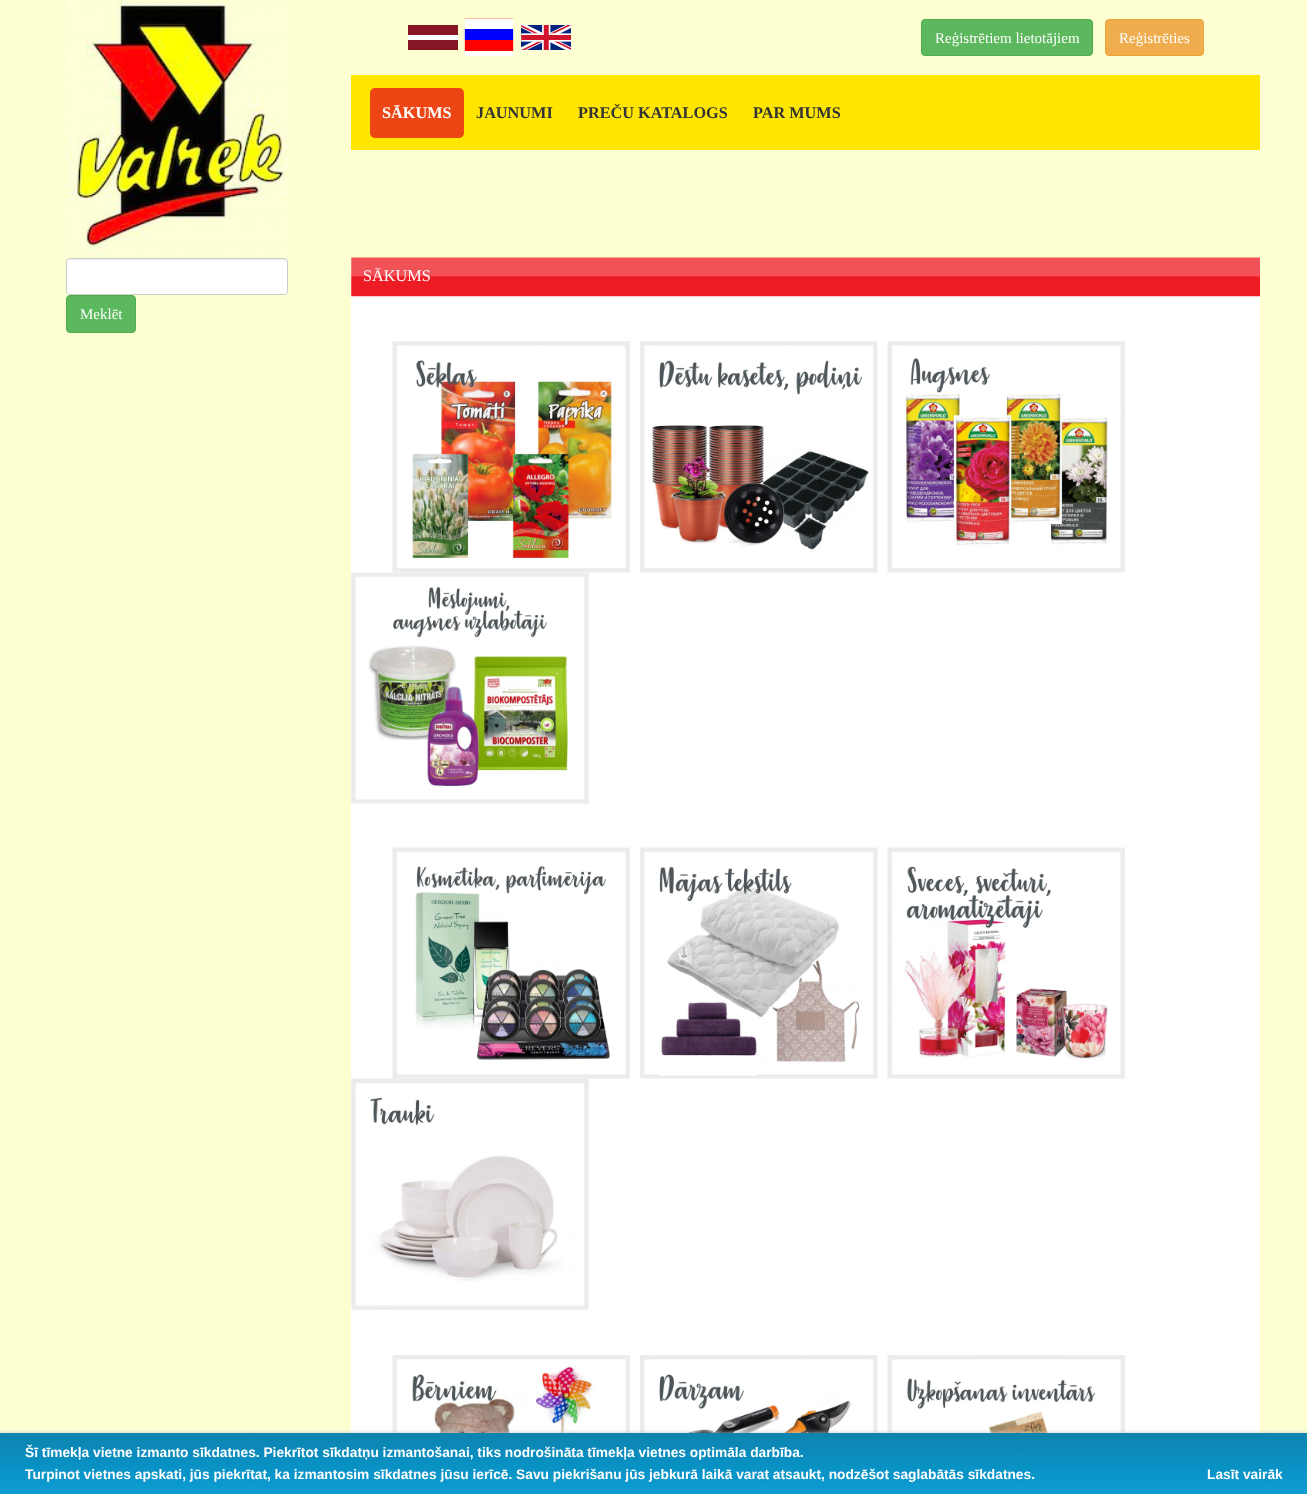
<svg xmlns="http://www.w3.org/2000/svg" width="1307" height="1494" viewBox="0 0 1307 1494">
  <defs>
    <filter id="blur1" x="-50%" y="-200%" width="200%" height="500%"><feGaussianBlur stdDeviation="2"/></filter>
    <linearGradient id="g1" gradientUnits="userSpaceOnUse" x1="654" y1="1433" x2="654" y2="1494"><stop offset="0" stop-color="#0e83ae"/><stop offset="0.5" stop-color="#0990c3"/><stop offset="1" stop-color="#0e9dd2"/></linearGradient>
  </defs>
  <rect width="100%" height="100%" fill="#fdffd2"/>
  <image x="66" y="0" width="224" height="256" href="img1.png"/>
  <rect x="408" y="25" width="50" height="25" fill="#861623"/>
  <rect x="408" y="35" width="50" height="5" fill="#ffffff"/>
  <image x="463" y="18" width="51" height="39" href="img2.png"/>
  <image x="521" y="23" width="50" height="29" href="img3.png"/>
  <rect x="921.5" y="19.5" width="171" height="36" rx="3.5" fill="#5cb85c" stroke="#4cae4c"/>
  <text x="935" y="43" font-family="Liberation Serif" font-size="15" fill="#ffffff">Reģistrētiem lietotājiem</text>
  <rect x="1105.5" y="19.5" width="98" height="36" rx="3.5" fill="#f0ad4e" stroke="#eea236"/>
  <text x="1119" y="43" font-family="Liberation Serif" font-size="15" fill="#ffffff">Reģistrēties</text>
  <rect x="351" y="75" width="909" height="75" fill="#ffe600"/>
  <rect x="370" y="88" width="94" height="50" rx="5" fill="#ee4514"/>
  <text x="382" y="118" font-family="Liberation Serif" font-size="16.25" font-weight="bold" fill="#ffffff">SĀKUMS</text>
  <text x="476" y="118" font-family="Liberation Serif" font-size="16.25" font-weight="bold" fill="#333333">JAUNUMI</text>
  <text x="578" y="118" font-family="Liberation Serif" font-size="16.25" font-weight="bold" fill="#333333">PREČU KATALOGS</text>
  <text x="753" y="118" font-family="Liberation Serif" font-size="16.25" font-weight="bold" fill="#333333">PAR MUMS</text>
  <rect x="351" y="258" width="909" height="1175" fill="#ffffff"/>
  <image x="351" y="257" width="909" height="40" href="img4.png"/>
  <text x="363" y="281" font-family="Liberation Serif" font-size="16.25" fill="#ffffff">SĀKUMS</text>
  <image x="392" y="341" width="238" height="232" href="img5.png"/>
  <image x="640" y="341" width="238" height="232" href="img6.png"/>
  <image x="887" y="341" width="238" height="232" href="img7.png"/>
  <image x="351" y="572" width="238" height="232" href="img8.png"/>
  <image x="392" y="847" width="238" height="232" href="img9.png"/>
  <image x="640" y="847" width="238" height="232" href="img10.png"/>
  <image x="887" y="847" width="238" height="232" href="img11.png"/>
  <image x="351" y="1078" width="238" height="232" href="img12.png"/>
  <image x="392" y="1355" width="238" height="78" href="img13.png"/>
  <image x="640" y="1355" width="238" height="78" href="img14.png"/>
  <image x="887" y="1355" width="238" height="78" href="img15.png"/>
  <rect x="66" y="258" width="222" height="37" rx="4" fill="#ffffff"/>
  <path d="M70 260H284C285 260 286 261 286 262C286 260 285 259 284 259H70C69 259 68 260 68 262C68 261 69 260 70 260Z" fill="#ececec"/>
  <rect x="66.5" y="258.5" width="221" height="36" rx="3.5" fill="none" stroke="#cccccc"/>
  <rect x="66.5" y="295.5" width="69" height="37" rx="3.5" fill="#5cb85c" stroke="#4cae4c"/>
  <text x="80" y="319" font-family="Liberation Serif" font-size="15" fill="#ffffff">Meklēt</text>
  <rect x="0" y="1433" width="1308" height="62" fill="#cccccc" filter="url(#blur1)"/>
  <rect x="0" y="1433" width="1307" height="61" fill="url(#g1)"/>
  <text x="25" y="1457" font-family="Liberation Sans" font-size="13.75" font-weight="bold" fill="#ffffff">Šī tīmekļa vietne izmanto sīkdatnes. Piekrītot sīkdatņu izmantošanai, tiks nodrošināta tīmekļa vietnes optimāla darbība.</text>
  <text x="25" y="1479" font-family="Liberation Sans" font-size="13.75" font-weight="bold" fill="#ffffff">Turpinot vietnes apskati, jūs piekrītat, ka izmantosim sīkdatnes jūsu ierīcē. Savu piekrišanu jūs jebkurā laikā varat atsaukt, nodzēšot saglabātās sīkdatnes.</text>
  <text x="1207" y="1479" font-family="Liberation Sans" font-size="13.75" font-weight="bold" fill="#ffffff">Lasīt vairāk</text>
</svg>
